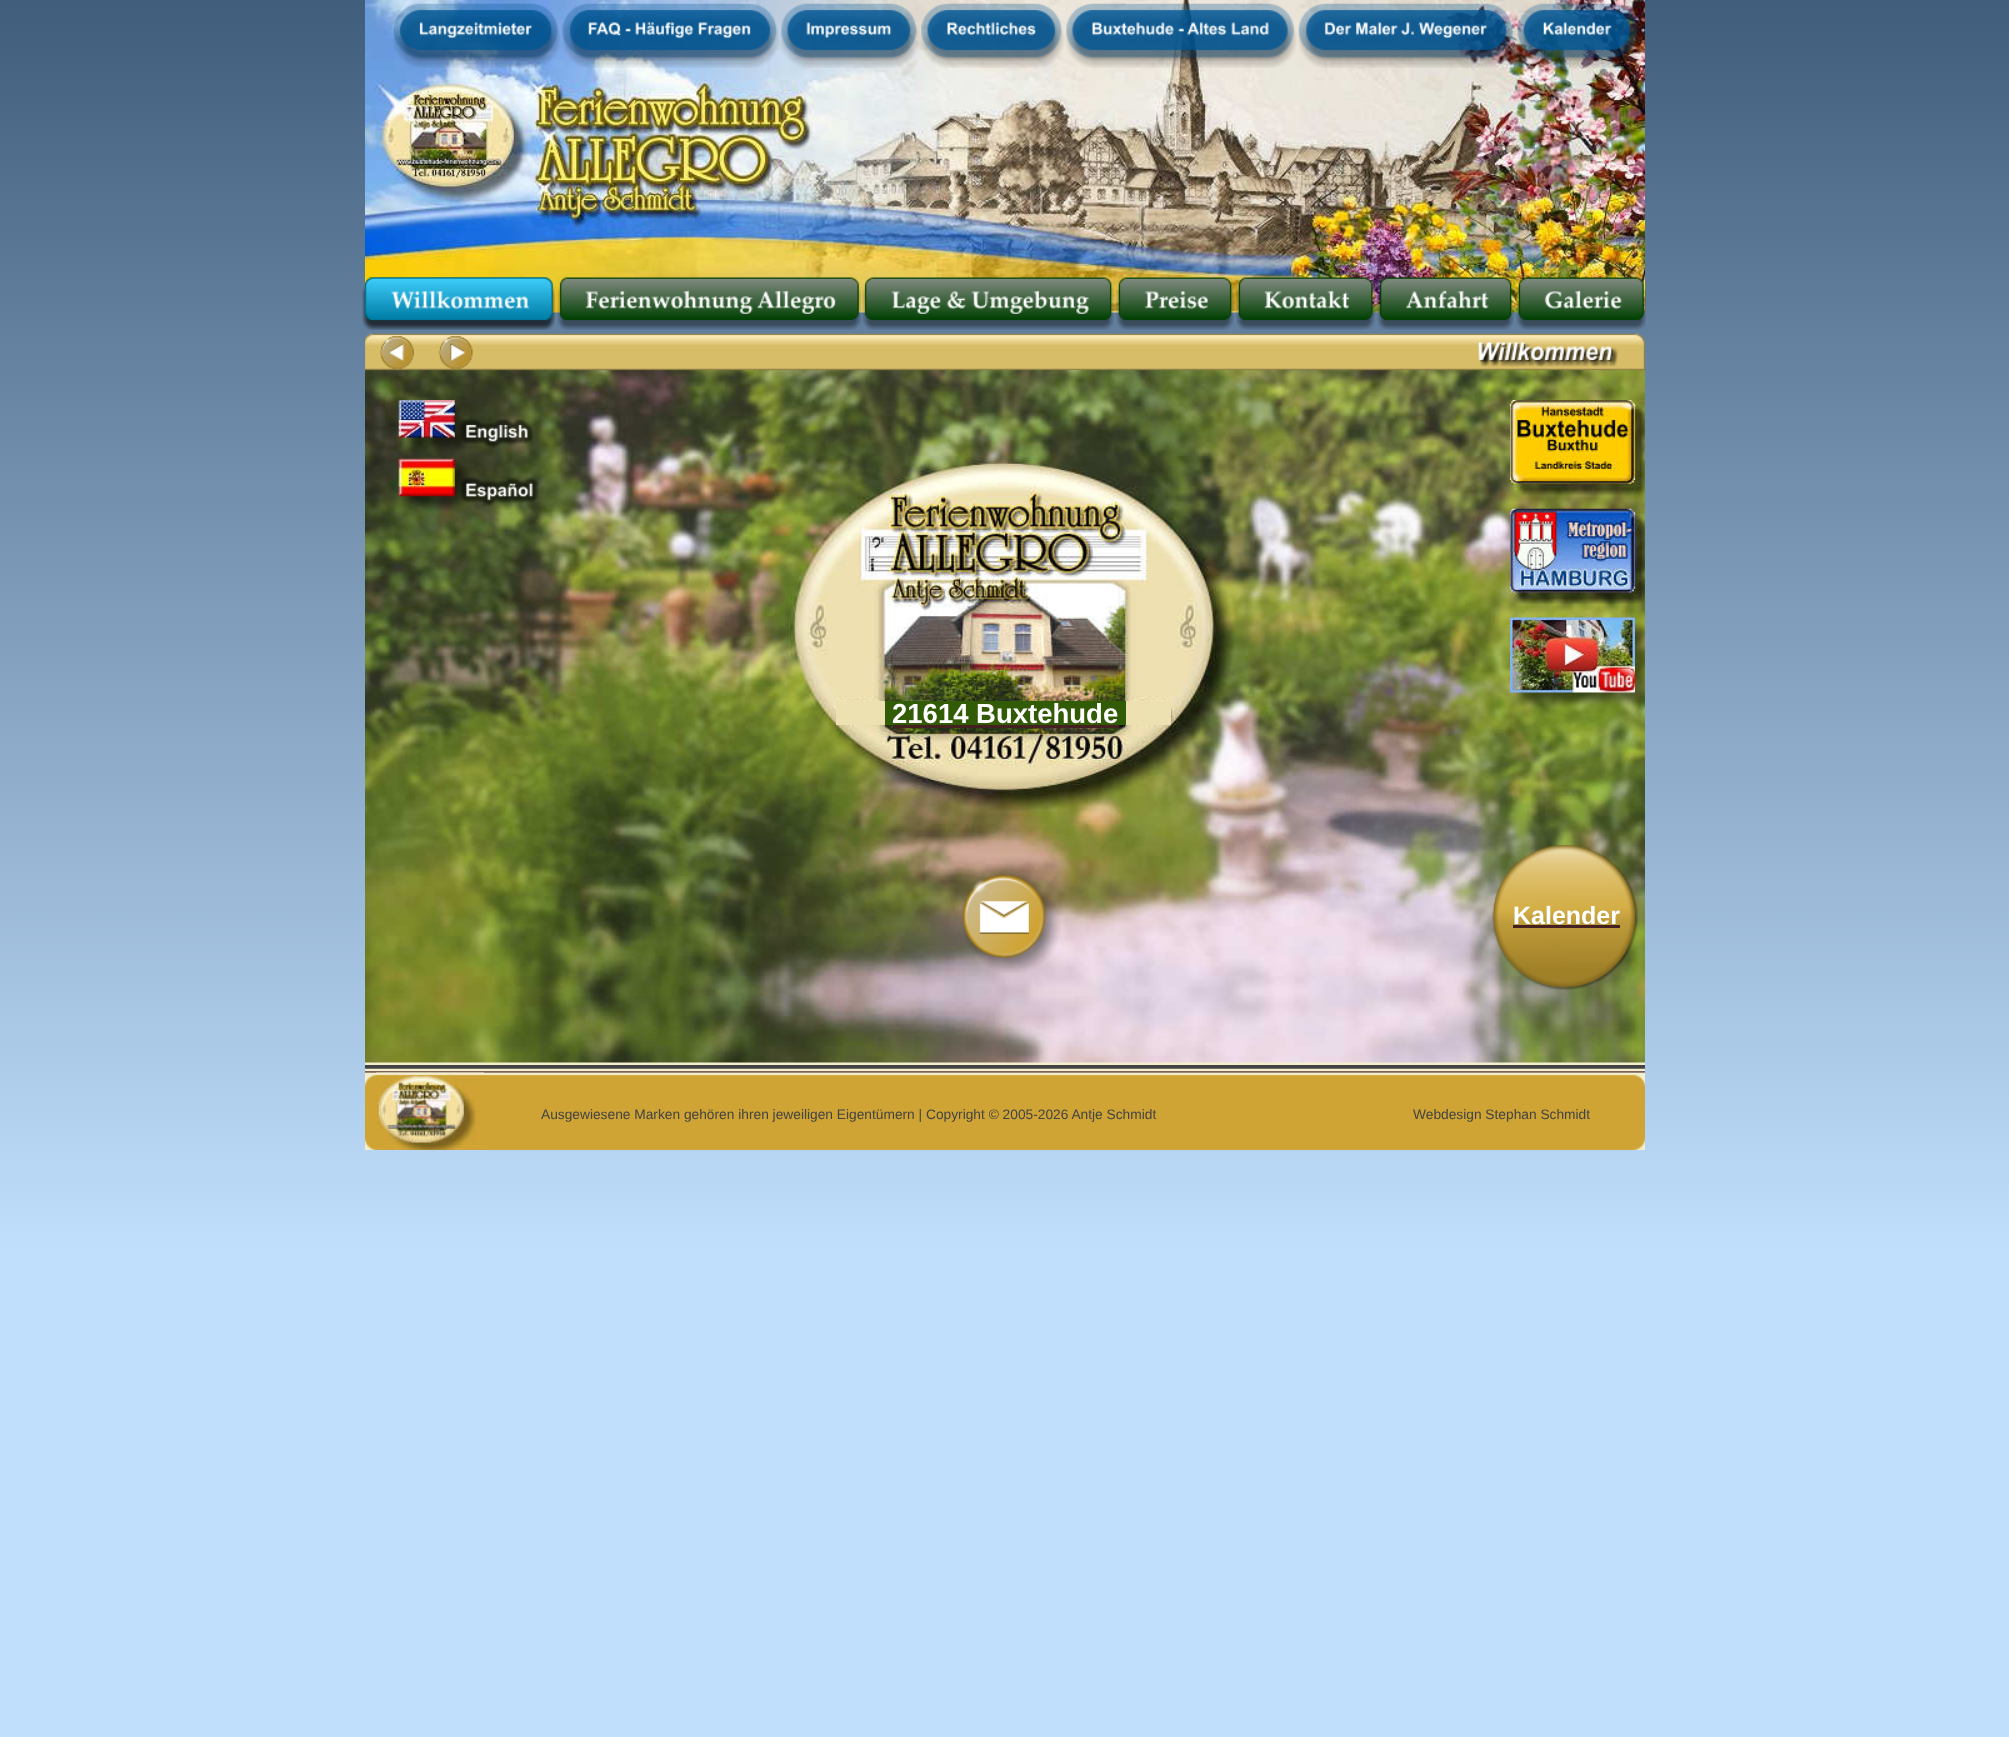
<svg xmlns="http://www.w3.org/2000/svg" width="2009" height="1737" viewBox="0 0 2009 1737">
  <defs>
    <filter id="blur1" x="-50%" y="-200%" width="200%" height="500%"><feGaussianBlur stdDeviation="4"/></filter>
    <clipPath id="clip1"><rect x="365" y="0" width="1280" height="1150"/></clipPath>
  </defs>
  <rect width="100%" height="100%" fill="#ffffff"/>
  <image x="0" y="0" width="2009" height="1737" href="img1.png"/>
  <image x="365" y="0" width="1280" height="313" href="img18.png"/>
  <image x="393" y="3" width="168" height="65" href="img2.png"/>
  <image x="562" y="3" width="218" height="65" href="img3.png"/>
  <image x="780" y="3" width="140" height="65" href="img4.png"/>
  <image x="920" y="3" width="145" height="65" href="img5.png"/>
  <image x="1065" y="3" width="232" height="65" href="img6.png"/>
  <image x="1298" y="3" width="218" height="65" href="img7.png"/>
  <image x="1517" y="3" width="123" height="65" href="img8.png"/>
  <image x="362" y="277" width="193" height="53" href="img9.png"/>
  <image x="362" y="277" width="193" height="53" href="img10.png"/>
  <image x="557" y="277" width="305" height="53" href="img11.png"/>
  <image x="862" y="277" width="252" height="53" href="img12.png"/>
  <image x="1116" y="277" width="118" height="53" href="img13.png"/>
  <image x="1236" y="277" width="139" height="53" href="img14.png"/>
  <image x="1377" y="277" width="137" height="53" href="img15.png"/>
  <image x="1516" y="277" width="130" height="53" href="img16.png"/>
  <rect x="365" y="1062" width="1280" height="88" fill="#f2eece"/>
  <image x="365" y="367" width="1280" height="696" href="img17.png"/>
  <image x="365" y="333" width="1280" height="38" href="img19.png"/>
  <image x="380" y="336" width="34" height="33" href="img20.png"/>
  <image x="438" y="336" width="35" height="33" href="img21.png"/>
  <rect x="408" y="409" width="56" height="37" fill="#000000" fill-opacity="0.5" filter="url(#blur1)"/>
  <image x="398" y="400" width="57" height="38" href="img22.png"/>
  <rect x="408" y="468" width="56" height="37" fill="#000000" fill-opacity="0.5" filter="url(#blur1)"/>
  <image x="460" y="419" width="79" height="87" href="img23.png"/>
  <image x="1510" y="400" width="135" height="101" href="img24.png"/>
  <image x="398" y="458" width="57" height="39" href="img25.png"/>
  <image x="787" y="456" width="461" height="368" href="img26.png"/>
  <image x="1510" y="508" width="135" height="102" href="img27.png"/>
  <rect x="836" y="701" width="335" height="24" fill="#ede0b1"/>
  <g clip-path="url(#clip1)">
    <rect x="1519" y="626" width="125" height="75" fill="#000000" fill-opacity="0.5" filter="url(#blur1)"/>
  </g>
  <image x="1510" y="617" width="125" height="76" href="img28.png"/>
  <rect x="885" y="701" width="241" height="24" fill="#325b06"/>
  <text x="892" y="723" font-family="Liberation Sans" font-size="27.5" font-weight="bold" fill="#ffffff">21614 Buxtehude</text>
  <rect x="893" y="725" width="226" height="3" fill="#452020"/>
  <image x="962" y="875" width="99" height="98" href="img29.png"/>
  <image x="1492" y="845" width="146" height="145" href="img30.png"/>
  <text x="1513" y="924" font-family="Liberation Sans" font-size="25" font-weight="bold" fill="#ffffff">Kalender</text>
  <rect x="1513" y="925" width="107" height="3" fill="#452020"/>
  <image x="365" y="1065" width="1280" height="85" href="img32.png"/>
  <image x="376" y="1072" width="108" height="78" href="img31.png"/>
  <text x="541" y="1119" font-family="Liberation Sans" font-size="13.75" fill="#434343">Ausgewiesene Marken gehören ihren jeweiligen Eigentümern | Copyright © 2005-2026 Antje Schmidt</text>
  <text x="1413" y="1119" font-family="Liberation Sans" font-size="13.75" fill="#434343">Webdesign Stephan Schmidt</text>
</svg>
